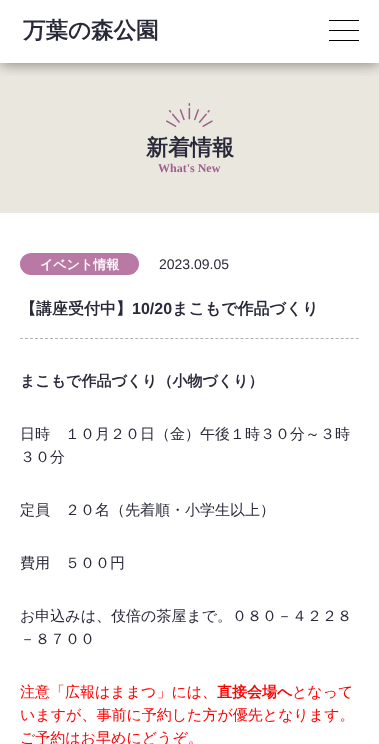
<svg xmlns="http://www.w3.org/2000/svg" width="379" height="744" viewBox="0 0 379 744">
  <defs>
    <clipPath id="clip1"><rect x="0" y="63" width="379" height="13"/></clipPath>
    <filter id="blur1" x="-50%" y="-200%" width="200%" height="500%"><feGaussianBlur stdDeviation="7.5"/></filter>
  </defs>
  <rect width="100%" height="100%" fill="#ffffff"/>
  <rect x="0" y="63" width="379" height="150" fill="#eae7de"/>
  <g clip-path="url(#clip1)">
    <rect x="0" y="0" width="379" height="63" fill="#000000" fill-opacity="0.5" filter="url(#blur1)"/>
  </g>
  <text x="23" y="38" font-family="WenQuanYi Zen Hei" font-size="22.5" font-weight="bold" fill="#292939">万葉の森公園</text>
  <rect x="329" y="20" width="30" height="1" fill="#000000"/>
  <rect x="329" y="30" width="30" height="1" fill="#000000"/>
  <rect x="329" y="40" width="30" height="1" fill="#000000"/>
  <image x="166" y="103" width="47" height="24" href="img1.png"/>
  <text x="146" y="155" font-family="WenQuanYi Zen Hei" font-size="22" font-weight="bold" fill="#292939">新着情報</text>
  <text x="158" y="172" font-family="Liberation Serif" font-size="12" font-weight="bold" fill="#9f5d8e">What's New</text>
  <rect x="20" y="253" width="119" height="22" rx="11" fill="#b979a5"/>
  <text x="40" y="269" font-family="WenQuanYi Zen Hei" font-size="13" font-weight="bold" fill="#ffffff">イベント情報</text>
  <text x="159" y="269" font-family="Liberation Sans" font-size="14" fill="#292939">2023.09.05</text>
  <path d="M20 338.5H359" fill="none" stroke="#b2b2b2" stroke-dasharray="3 2.01"/>
  <text x="20" y="314" font-family="WenQuanYi Zen Hei" font-size="16" font-weight="bold" fill="#292939">【講座受付中】</text>
  <text x="132" y="314" font-family="Liberation Sans" font-size="16" font-weight="bold" fill="#292939">10/20</text>
  <text x="172" y="314" font-family="WenQuanYi Zen Hei" font-size="16" font-weight="bold" fill="#292939">まこもで作品づくり</text>
  <text x="20" y="386" font-family="WenQuanYi Zen Hei" font-size="15" font-weight="bold" fill="#292939">まこもで作品づくり（小物づくり）</text>
  <text x="20" y="439" font-family="WenQuanYi Zen Hei" font-size="15" font-weight="500" fill="#292939">日時　１０月２０日（金）午後１時３０分～３時</text>
  <text x="20" y="462" font-family="WenQuanYi Zen Hei" font-size="15" font-weight="500" fill="#292939">３０分</text>
  <text x="20" y="515" font-family="WenQuanYi Zen Hei" font-size="15" font-weight="500" fill="#292939">定員　２０名（先着順・小学生以上）</text>
  <text x="20" y="568" font-family="WenQuanYi Zen Hei" font-size="15" font-weight="500" fill="#292939">費用　５００円</text>
  <text x="20" y="621" font-family="WenQuanYi Zen Hei" font-size="15" font-weight="500" fill="#292939">お申込みは、伎倍の茶屋まで。０８０－４２２８</text>
  <text x="20" y="644" font-family="WenQuanYi Zen Hei" font-size="15" font-weight="500" fill="#292939">－８７００</text>
  <text x="20" y="697" font-family="WenQuanYi Zen Hei" font-size="15" font-weight="500" fill="#ff0000">注意「広報はままつ」には、</text>
  <text x="217" y="697" font-family="WenQuanYi Zen Hei" font-size="15" font-weight="bold" fill="#ff0000">直接会場へ</text>
  <text x="292" y="697" font-family="WenQuanYi Zen Hei" font-size="15" font-weight="500" fill="#ff0000">となって</text>
  <text x="20" y="720" font-family="WenQuanYi Zen Hei" font-size="15" font-weight="500" fill="#ff0000">いますが、事前に予約した方が優先となります。</text>
  <text x="20" y="743" font-family="WenQuanYi Zen Hei" font-size="15" font-weight="500" fill="#ff0000">ご予約はお早めにどうぞ。</text>
</svg>
